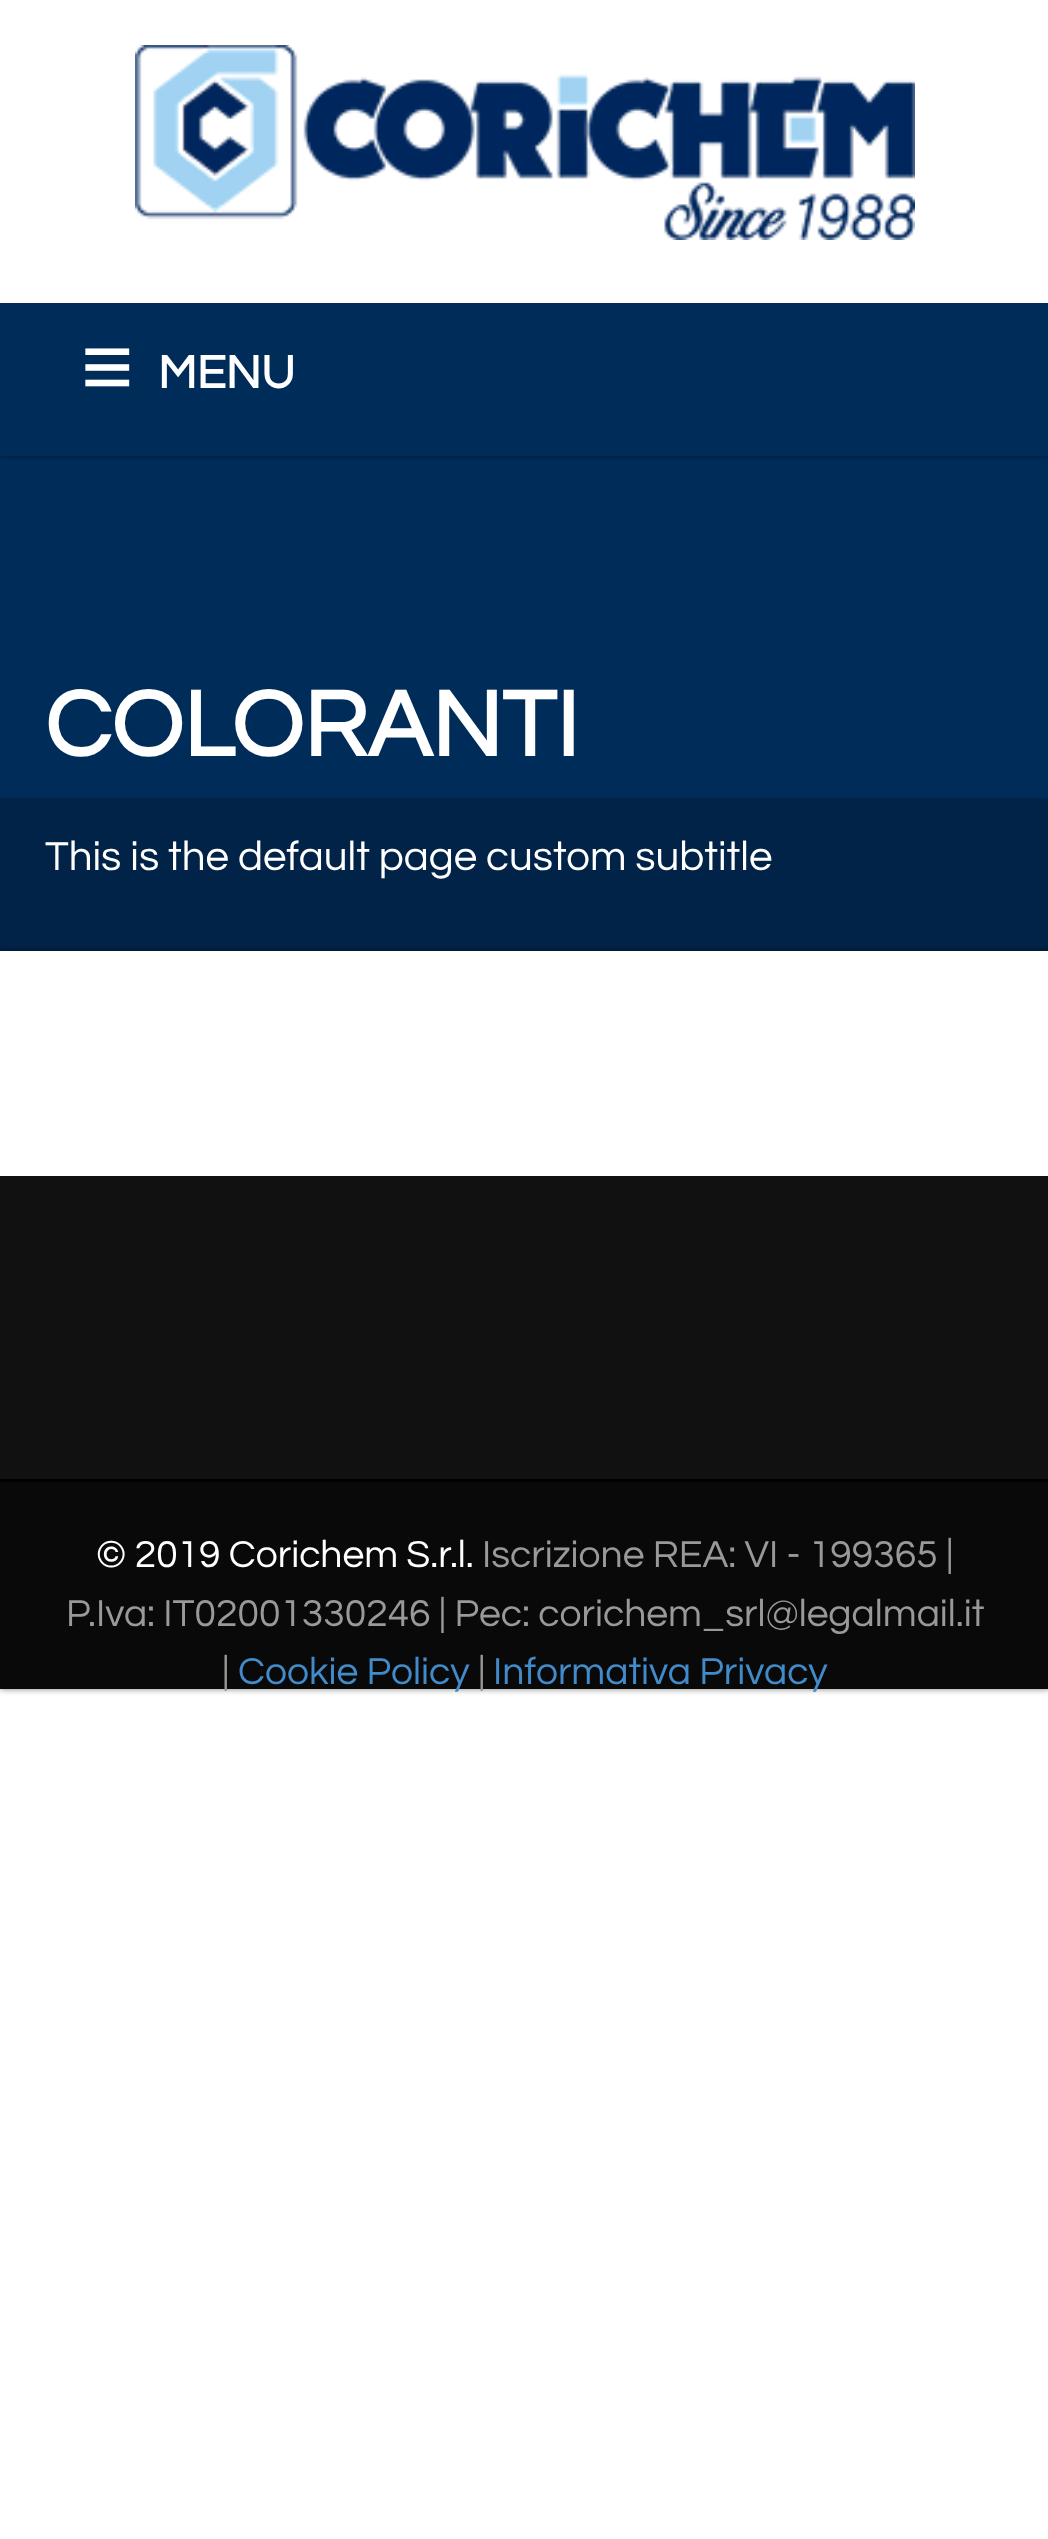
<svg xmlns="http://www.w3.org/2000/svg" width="1048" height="2539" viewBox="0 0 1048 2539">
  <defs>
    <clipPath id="clip1"><rect x="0" y="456" width="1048" height="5"/></clipPath>
    <filter id="blur1" x="-50%" y="-200%" width="200%" height="500%"><feGaussianBlur stdDeviation="3"/></filter>
    <clipPath id="clip2"><path d="M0 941H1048V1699H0ZM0 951H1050V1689H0Z" clip-rule="evenodd"/></clipPath>
  </defs>
  <rect width="100%" height="100%" fill="#ffffff"/>
  <rect x="0" y="456" width="1048" height="342" fill="#002c59"/>
  <g clip-path="url(#clip1)">
    <rect x="0" y="0" width="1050" height="456" fill="#000000" fill-opacity="0.5" filter="url(#blur1)"/>
  </g>
  <image x="135" y="45" width="780" height="195" href="img1.png"/>
  <rect x="0" y="303" width="1048" height="153" fill="#002c59"/>
  <text x="81" y="397" font-family="Liberation Sans" font-size="90" font-weight="bold" fill="#ffffff">≡</text>
  <text x="158" y="388" font-family="Questrial" font-size="48" font-weight="bold" fill="#ffffff">MENU</text>
  <text x="45" y="756" font-family="Questrial" font-size="96" font-weight="bold" fill="#ffffff">COLORANTI</text>
  <rect x="0" y="798" width="1048" height="153" fill="#002347"/>
  <text x="45" y="870" font-family="Questrial" font-size="42" fill="#ffffff">This is the default page custom subtitle</text>
  <g clip-path="url(#clip2)">
    <rect x="0" y="951" width="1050" height="738" fill="#000000" fill-opacity="0.5" filter="url(#blur1)"/>
  </g>
  <rect x="0" y="1176" width="1048" height="303" fill="#111111"/>
  <rect x="0" y="1482" width="1048" height="207" fill="#090909"/>
  <rect x="0" y="1479" width="1048" height="3" fill="#000000"/>
  <text x="96" y="1567" font-family="Questrial" font-size="39" fill="#ffffff">© 2019 Corichem S.r.l.</text>
  <text x="482" y="1567" font-family="Questrial" font-size="39" fill="#999999">Iscrizione REA: VI - 199365 |</text>
  <text x="66" y="1626" font-family="Questrial" font-size="39" fill="#999999">P.Iva: IT02001330246 | Pec: corichem_srl@legalmail.it</text>
  <text x="222" y="1684" font-family="Questrial" font-size="39" fill="#999999">|</text>
  <text x="238" y="1684" font-family="Questrial" font-size="39" fill="#428bca">Cookie Policy</text>
  <text x="478" y="1684" font-family="Questrial" font-size="39" fill="#999999">|</text>
  <text x="493" y="1684" font-family="Questrial" font-size="39" fill="#428bca">Informativa Privacy</text>
</svg>
